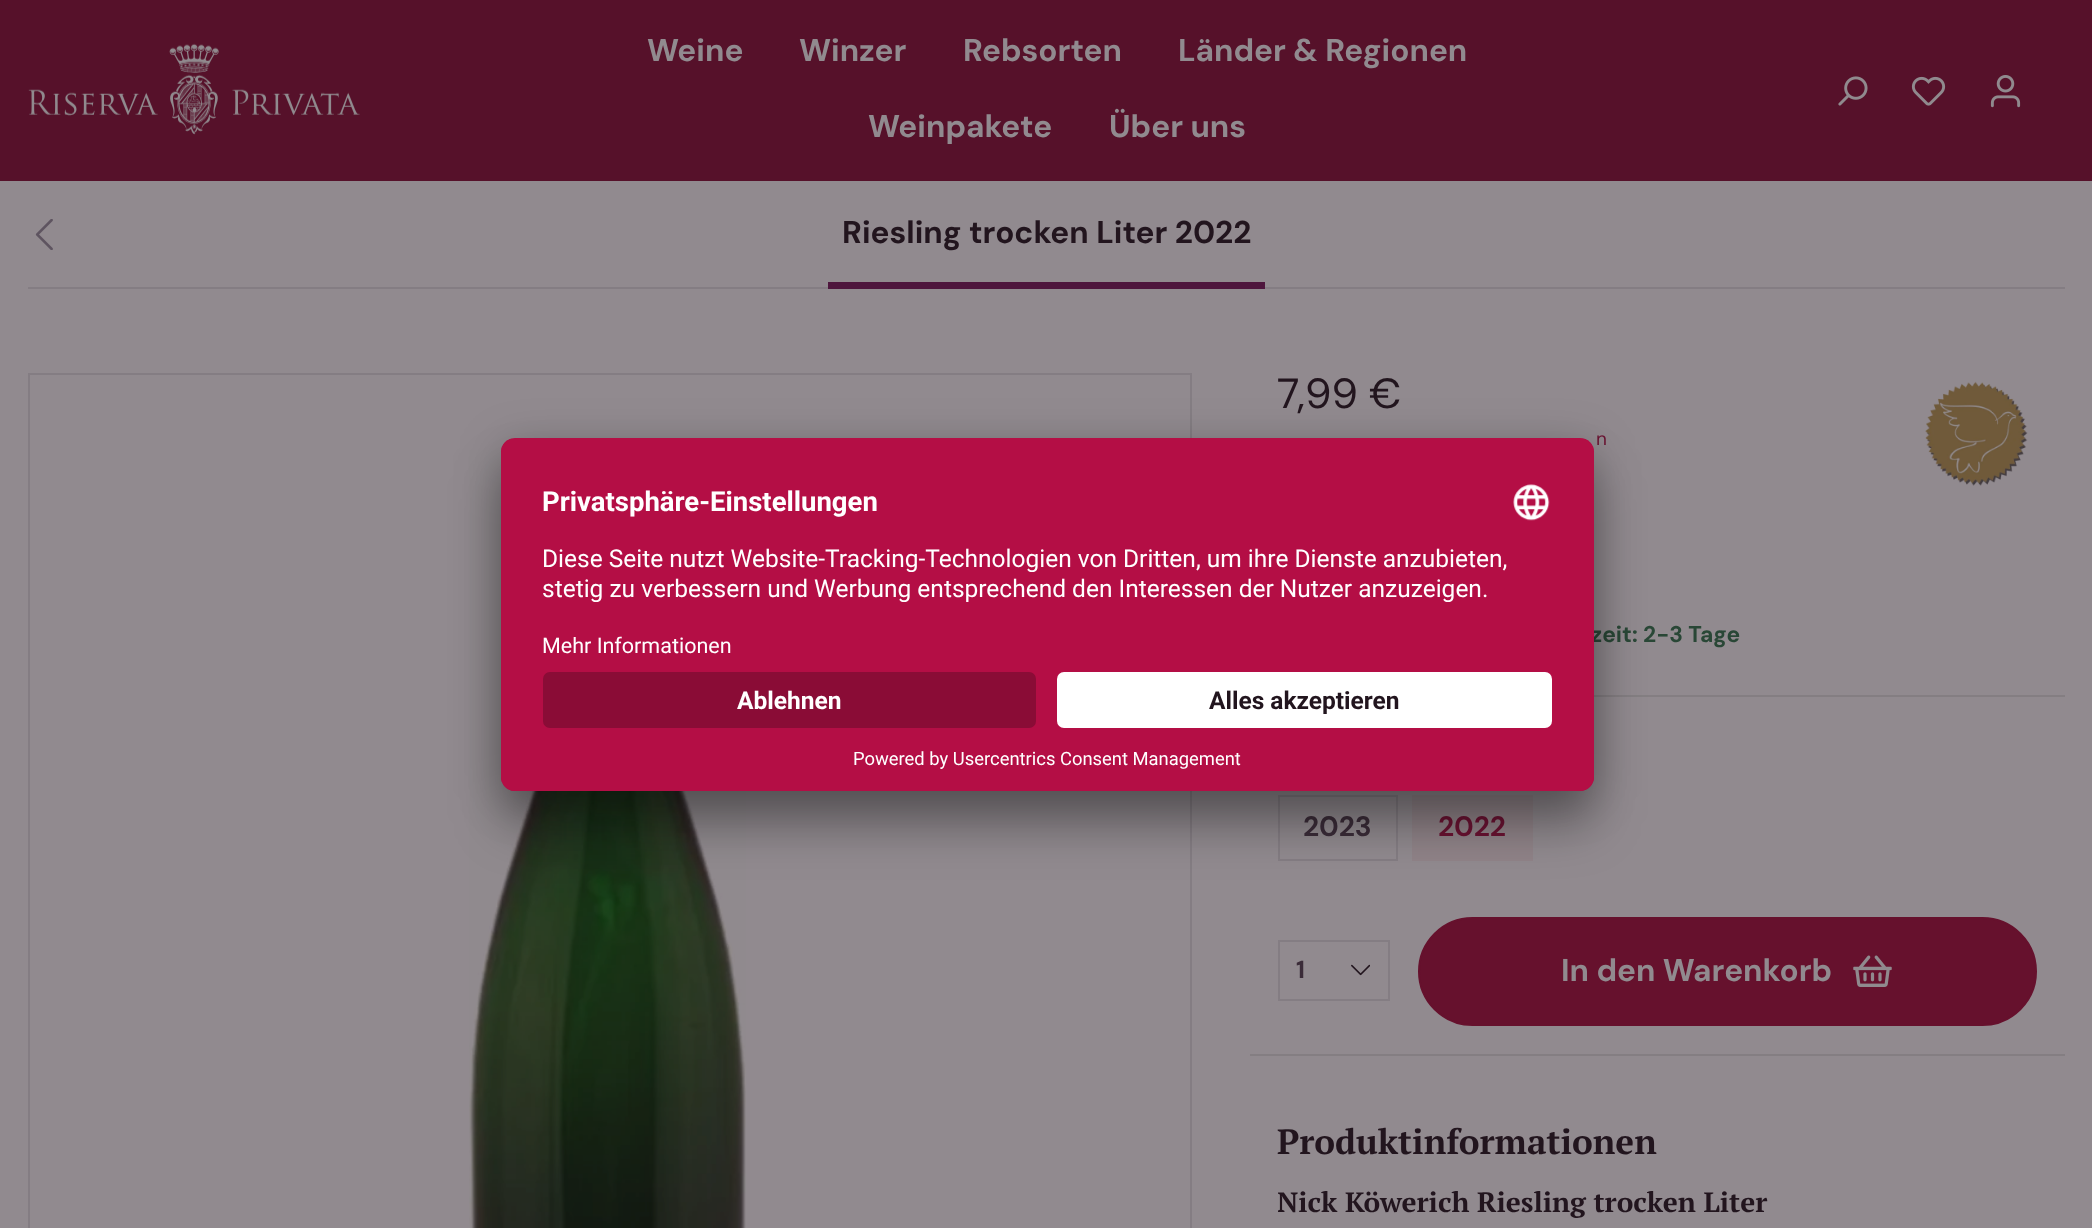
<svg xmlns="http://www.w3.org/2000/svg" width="2092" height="1228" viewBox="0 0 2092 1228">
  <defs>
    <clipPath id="clip1"><rect x="1278" y="1181" width="759" height="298"/></clipPath>
    <filter id="blur1" x="-50%" y="-200%" width="200%" height="500%"><feGaussianBlur stdDeviation="24.5"/></filter>
    <filter id="blur2" x="-50%" y="-200%" width="200%" height="500%"><feGaussianBlur stdDeviation="23"/></filter>
    <clipPath id="clip2"><rect x="501" y="438" width="1093" height="353" rx="14"/></clipPath>
    <clipPath id="clip3"><path d="M515 438H1580C1587.5 438 1594 444.5 1594 452V658H501V452C501 444.5 507.5 438 515 438Z"/></clipPath>
  </defs>
  <rect width="100%" height="100%" fill="#918a8f"/>
  <rect x="0" y="0" width="2092" height="181" fill="#56112a"/>
  <image x="28" y="43" width="332" height="92" href="img1.png"/>
  <text x="647" y="61" font-family="DM Sans" font-size="31.5" font-weight="bold" fill="#918a8f">Weine</text>
  <text x="799" y="61" font-family="DM Sans" font-size="31.5" font-weight="bold" fill="#918a8f">Winzer</text>
  <text x="963" y="61" font-family="DM Sans" font-size="31.5" font-weight="bold" fill="#918a8f">Rebsorten</text>
  <text x="1178" y="61" font-family="DM Sans" font-size="31.5" font-weight="bold" fill="#918a8f">Länder &amp; Regionen</text>
  <text x="868" y="137" font-family="DM Sans" font-size="31.5" font-weight="bold" fill="#918a8f">Weinpakete</text>
  <text x="1109" y="137" font-family="DM Sans" font-size="31.5" font-weight="bold" fill="#918a8f">Über uns</text>
  <image x="1838" y="76" width="30" height="30" href="img2.png"/>
  <image x="1911" y="76" width="35" height="30" href="img3.png"/>
  <image x="1990" y="75" width="31" height="33" href="img4.png"/>
  <image x="35" y="219" width="18" height="31" href="img5.png"/>
  <rect x="28" y="287" width="2037" height="2" fill="#847d83"/>
  <text x="842" y="243" font-family="DM Sans" font-size="31.5" font-weight="bold" fill="#22151e">Riesling trocken Liter 2022</text>
  <rect x="828" y="282" width="437" height="7" fill="#4e163d"/>
  <rect x="29" y="374" width="1162" height="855" fill="none" stroke="#847d83" stroke-width="2"/>
  <image x="469" y="450" width="277" height="778" href="img6.png"/>
  <text x="1277" y="408" font-family="DM Sans" font-size="42" fill="#22151e">7,99 €</text>
  <text x="1596" y="445" font-family="DM Sans" font-size="19" fill="#6b1232">n</text>
  <image x="1925" y="381" width="103" height="105" href="img7.png"/>
  <text x="1591" y="642" font-family="DM Sans" font-size="22.75" font-weight="bold" fill="#294736">zeit: 2-3 Tage</text>
  <rect x="1594" y="695" width="471" height="2" fill="#847e82"/>
  <rect x="1279" y="796" width="118" height="64" fill="none" stroke="#847d83" stroke-width="2"/>
  <text x="1303" y="836" font-family="DM Sans" font-size="28" font-weight="bold" fill="#3b2c39">2023</text>
  <rect x="1412" y="795" width="121" height="66" fill="#908388"/>
  <text x="1438" y="836" font-family="DM Sans" font-size="28" font-weight="bold" fill="#6b1232">2022</text>
  <image x="1351" y="964" width="19" height="12" href="img8.png"/>
  <rect x="1279" y="941" width="110" height="59" fill="none" stroke="#847d83" stroke-width="2"/>
  <text x="1296" y="978" font-family="DM Sans" font-size="24.5" font-weight="bold" fill="#3b2c39">1</text>
  <rect x="1419" y="918" width="617" height="107" rx="53.5" fill="#66112d" stroke="#66112d" stroke-width="2"/>
  <text x="1561" y="981" font-family="DM Sans" font-size="31.5" font-weight="bold" fill="#918a8f">In den Warenkorb</text>
  <image x="1853" y="955" width="39" height="32" href="img9.png"/>
  <rect x="1250" y="1054" width="815" height="2" fill="#847e82"/>
  <text x="1277" y="1154" font-family="PT Serif" font-size="35" font-weight="bold" fill="#22151e">Produktinformationen</text>
  <g clip-path="url(#clip1)">
    <text x="1277" y="1212" font-family="PT Serif" font-size="28" font-weight="bold" fill="#22151e">Nick Köwerich Riesling trocken Liter</text>
  </g>
  <rect x="501" y="473" width="1093" height="353" rx="14" fill="#000000" fill-opacity="0.3" filter="url(#blur1)"/>
  <rect x="501" y="446" width="1093" height="354" rx="14" fill="#000000" fill-opacity="0.22" filter="url(#blur2)"/>
  <rect x="501" y="438" width="1093" height="353" rx="14" fill="#b40e45"/>
  <g clip-path="url(#clip2)">
    <g clip-path="url(#clip3)">
      <rect x="501" y="439" width="1093" height="219" fill="#b40e45"/>
    </g>
  </g>
  <text x="542" y="511" font-family="Roboto" font-size="27.5" font-weight="bold" fill="#ffffff">Privatsphäre-Einstellungen</text>
  <image x="1513" y="484" width="37" height="37" href="img10.png"/>
  <text x="542" y="567" font-family="Roboto" font-size="24.5" fill="#ffffff">Diese Seite nutzt Website-Tracking-Technologien von Dritten, um ihre Dienste anzubieten,</text>
  <text x="542" y="597" font-family="Roboto" font-size="24.5" fill="#ffffff">stetig zu verbessern und Werbung entsprechend den Interessen der Nutzer anzuzeigen.</text>
  <text x="542" y="653" font-family="Roboto" font-size="21.5" fill="#ffffff">Mehr Informationen</text>
  <path d="M501 658H1594V777C1594 784.5 1587.5 791 1580 791H515C507.5 791 501 784.5 501 777Z" fill="#b40e45"/>
  <rect x="543" y="672" width="493" height="56" rx="7" fill="#8a0c36"/>
  <text x="737" y="709" font-family="Roboto" font-size="24.5" font-weight="bold" fill="#ffffff">Ablehnen</text>
  <rect x="1057" y="672" width="495" height="56" rx="7" fill="#ffffff"/>
  <text x="1209" y="709" font-family="Roboto" font-size="24.5" font-weight="bold" fill="#22151e">Alles akzeptieren</text>
  <text x="853" y="765" font-family="Roboto" font-size="18.4" fill="#ffffff">Powered by Usercentrics Consent Management</text>
</svg>
